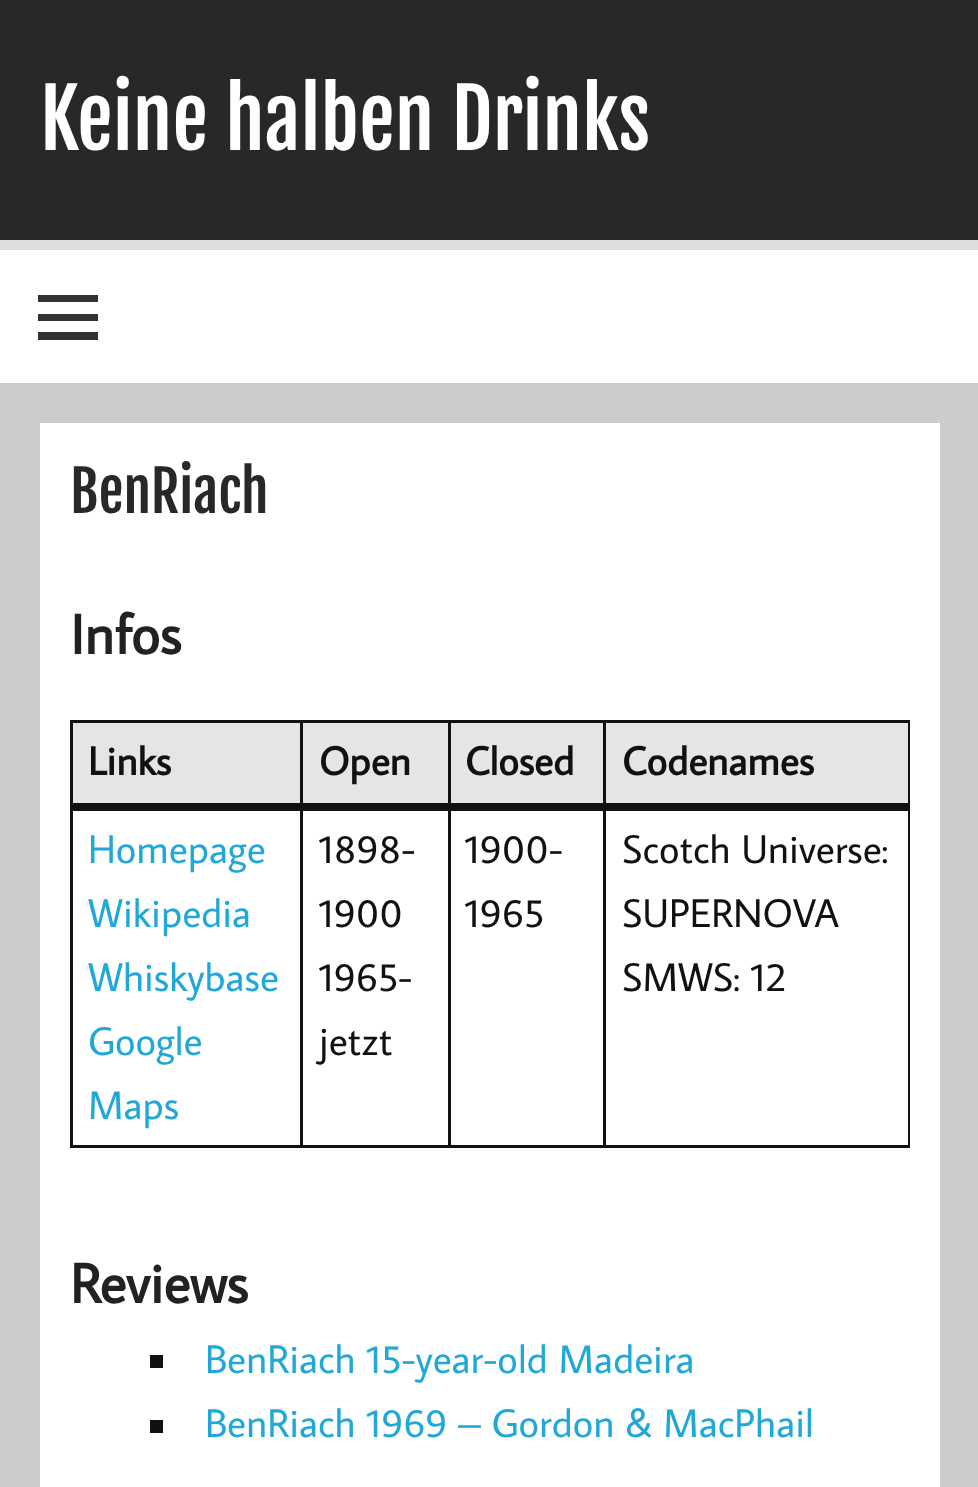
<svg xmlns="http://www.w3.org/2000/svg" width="978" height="1487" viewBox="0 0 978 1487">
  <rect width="100%" height="100%" fill="#cccccc"/>
  <rect x="0" y="0" width="978" height="240" fill="#282828"/>
  <text x="40" y="150" font-family="Fjalla One" font-size="80" fill="#ffffff">Keine halben Drinks</text>
  <rect x="0" y="250" width="978" height="133" fill="#ffffff"/>
  <rect x="0" y="240" width="978" height="10" fill="#dddddd"/>
  <path d="M38 340V332H98V340ZM38 295H98V302H38ZM38 321V314H98V321Z" fill="#333333"/>
  <rect x="40" y="423" width="900" height="1064" fill="#ffffff"/>
  <text x="70" y="513" font-family="Fjalla One" font-size="56" fill="#282828">BenRiach</text>
  <text x="70" y="654" font-family="Average Sans" font-size="56" font-weight="bold" fill="#222222">Infos</text>
  <rect x="603" y="720" width="307" height="3" fill="#111111"/>
  <rect x="908" y="805" width="2" height="343" fill="#111111"/>
  <rect x="603" y="1145" width="307" height="3" fill="#111111"/>
  <rect x="603" y="805" width="3" height="343" fill="#111111"/>
  <rect x="603" y="720" width="3" height="88" fill="#111111"/>
  <rect x="448" y="720" width="157" height="3" fill="#111111"/>
  <rect x="448" y="1145" width="157" height="3" fill="#111111"/>
  <rect x="448" y="805" width="3" height="343" fill="#111111"/>
  <rect x="448" y="720" width="3" height="88" fill="#111111"/>
  <rect x="300" y="720" width="150" height="3" fill="#111111"/>
  <rect x="300" y="1145" width="150" height="3" fill="#111111"/>
  <rect x="300" y="805" width="3" height="343" fill="#111111"/>
  <rect x="300" y="720" width="3" height="88" fill="#111111"/>
  <rect x="70" y="720" width="233" height="3" fill="#111111"/>
  <rect x="70" y="1145" width="233" height="3" fill="#111111"/>
  <rect x="70" y="805" width="3" height="343" fill="#111111"/>
  <rect x="70" y="720" width="3" height="88" fill="#111111"/>
  <rect x="908" y="720" width="2" height="88" fill="#111111"/>
  <rect x="70" y="803" width="840" height="8" fill="#111111"/>
  <rect x="73" y="723" width="227" height="80" fill="#e5e5e5"/>
  <text x="88" y="775" font-family="Average Sans" font-size="40" font-weight="bold" fill="#111111">Links</text>
  <rect x="303" y="723" width="145" height="80" fill="#e5e5e5"/>
  <text x="319" y="775" font-family="Average Sans" font-size="40" font-weight="bold" fill="#111111">Open</text>
  <rect x="451" y="723" width="152" height="80" fill="#e5e5e5"/>
  <text x="465" y="775" font-family="Average Sans" font-size="40" font-weight="bold" fill="#111111">Closed</text>
  <rect x="606" y="723" width="302" height="80" fill="#e5e5e5"/>
  <text x="622" y="775" font-family="Average Sans" font-size="40" font-weight="bold" fill="#111111">Codenames</text>
  <text x="88" y="863" font-family="Average Sans" font-size="40" fill="#22a8d8">Homepage</text>
  <text x="88" y="927" font-family="Average Sans" font-size="40" fill="#22a8d8">Wikipedia</text>
  <text x="88" y="991" font-family="Average Sans" font-size="40" fill="#22a8d8">Whiskybase</text>
  <text x="88" y="1055" font-family="Average Sans" font-size="40" fill="#22a8d8">Google</text>
  <text x="88" y="1119" font-family="Average Sans" font-size="40" fill="#22a8d8">Maps</text>
  <text x="319" y="863" font-family="Average Sans" font-size="40" fill="#111111">1898-</text>
  <text x="319" y="927" font-family="Average Sans" font-size="40" fill="#111111">1900</text>
  <text x="319" y="991" font-family="Average Sans" font-size="40" fill="#111111">1965-</text>
  <text x="319" y="1055" font-family="Average Sans" font-size="40" fill="#111111">jetzt</text>
  <text x="465" y="863" font-family="Average Sans" font-size="40" fill="#111111">1900-</text>
  <text x="465" y="927" font-family="Average Sans" font-size="40" fill="#111111">1965</text>
  <text x="622" y="863" font-family="Average Sans" font-size="40" fill="#111111">Scotch Universe:</text>
  <text x="622" y="927" font-family="Average Sans" font-size="40" fill="#111111">SUPERNOVA</text>
  <text x="622" y="991" font-family="Average Sans" font-size="40" fill="#111111">SMWS: 12</text>
  <text x="70" y="1303" font-family="Average Sans" font-size="56" font-weight="bold" fill="#222222">Reviews</text>
  <rect x="150" y="1355" width="13" height="13" fill="#111111"/>
  <text x="205" y="1373" font-family="Average Sans" font-size="40" fill="#22a8d8">BenRiach 15-year-old Madeira</text>
  <rect x="150" y="1420" width="13" height="13" fill="#111111"/>
  <text x="205" y="1437" font-family="Average Sans" font-size="40" fill="#22a8d8">BenRiach 1969 – Gordon &amp; MacPhail</text>
</svg>
